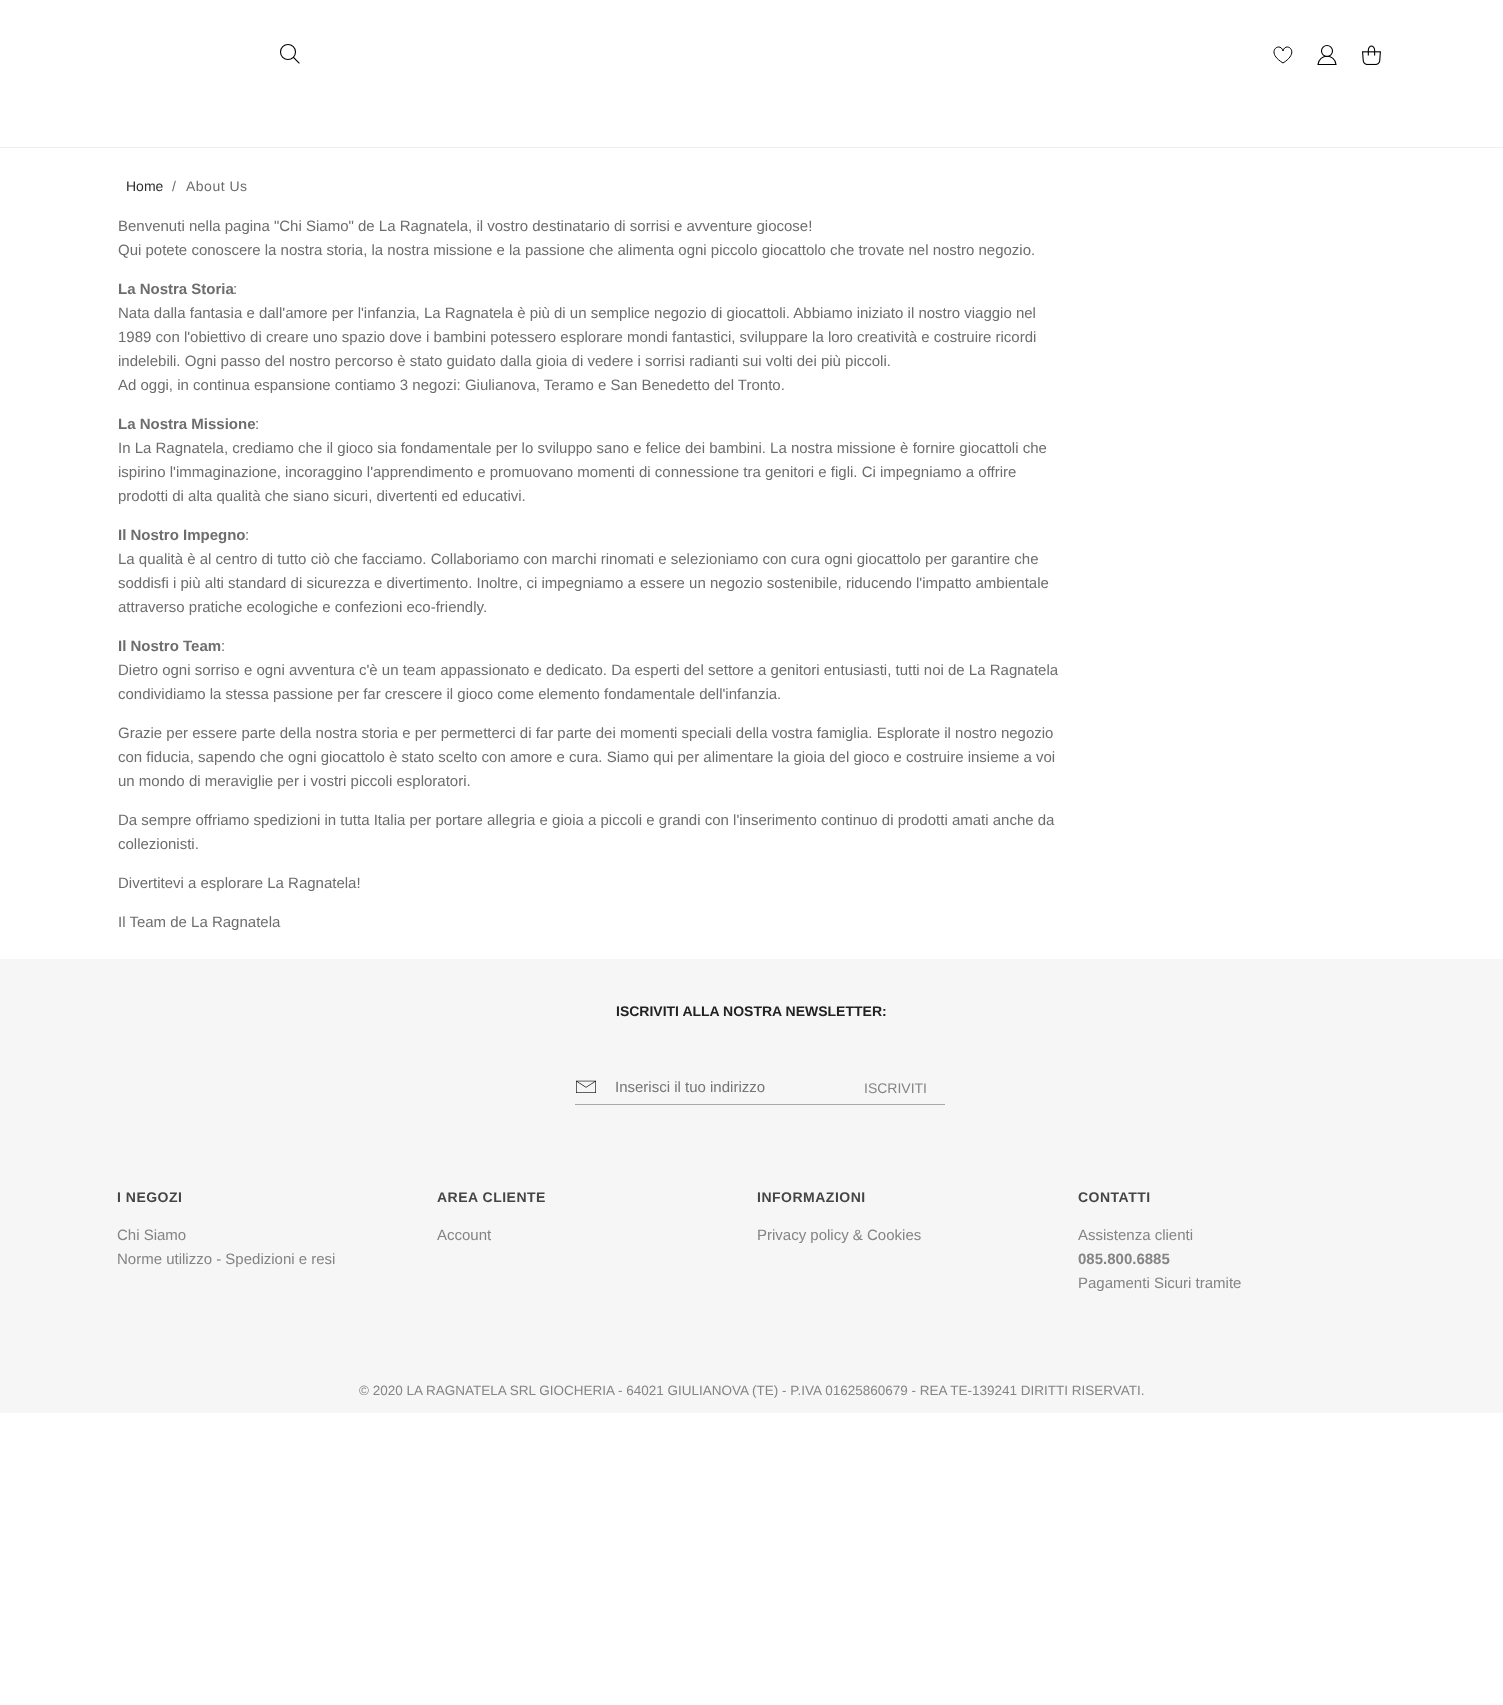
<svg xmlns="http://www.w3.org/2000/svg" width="1503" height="1705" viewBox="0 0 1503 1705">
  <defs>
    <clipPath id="clip1"><rect x="1317" y="45" width="20" height="20"/></clipPath>
  </defs>
  <rect width="100%" height="100%" fill="#ffffff"/>
  <rect x="0" y="147" width="1503" height="1" fill="#eeeeee"/>
  <circle cx="288" cy="52" r="7.5" fill="none" stroke="#000000" stroke-width="1.1"/>
  <path d="M293.5 57.5L299 63" fill="none" stroke="#000000" stroke-width="1.1" stroke-linecap="square"/>
  <path d="M1283 63C1301.5 51.5 1285.5 41 1283 51C1280.5 41 1264 51.5 1283 63Z" fill="none" stroke="#000000"/>
  <circle cx="1327" cy="51" r="5.5" fill="none" stroke="#000000" stroke-width="1.1"/>
  <g clip-path="url(#clip1)">
    <path d="M1336 64.5H1318C1319 53.5 1335 53.5 1336 64.5Z" fill="none" stroke="#000000" stroke-width="1.1"/>
  </g>
  <image x="1362" y="45" width="19" height="20" href="img1.png"/>
  <text x="126" y="191" font-family="Liberation Sans" font-size="14" fill="#2e2e2e">Home</text>
  <text x="172" y="191" font-family="Liberation Sans" font-size="14" fill="#6d6d6d">/</text>
  <text x="186" y="191" font-family="Liberation Sans" font-size="14" letter-spacing="0.5" fill="#6d6d6d">About Us</text>
  <text x="118" y="231" font-family="Liberation Sans" font-size="15" fill="#6d6d6d">Benvenuti nella pagina "Chi Siamo" de La Ragnatela, il vostro destinatario di sorrisi e avventure giocose!</text>
  <text x="118" y="255" font-family="Liberation Sans" font-size="15" fill="#6d6d6d">Qui potete conoscere la nostra storia, la nostra missione e la passione che alimenta ogni piccolo giocattolo che trovate nel nostro negozio.</text>
  <text x="118" y="294" font-family="Liberation Sans" font-size="15" font-weight="bold" fill="#6d6d6d">La Nostra Storia</text>
  <text x="233" y="294" font-family="Liberation Sans" font-size="15" fill="#6d6d6d">:</text>
  <text x="118" y="318" font-family="Liberation Sans" font-size="15" fill="#6d6d6d">Nata dalla fantasia e dall'amore per l'infanzia, La Ragnatela è più di un semplice negozio di giocattoli. Abbiamo iniziato il nostro viaggio nel</text>
  <text x="118" y="342" font-family="Liberation Sans" font-size="15" fill="#6d6d6d">1989 con l'obiettivo di creare uno spazio dove i bambini potessero esplorare mondi fantastici, sviluppare la loro creatività e costruire ricordi</text>
  <text x="118" y="366" font-family="Liberation Sans" font-size="15" fill="#6d6d6d">indelebili. Ogni passo del nostro percorso è stato guidato dalla gioia di vedere i sorrisi radianti sui volti dei più piccoli.</text>
  <text x="118" y="390" font-family="Liberation Sans" font-size="15" fill="#6d6d6d">Ad oggi, in continua espansione contiamo 3 negozi: Giulianova, Teramo e San Benedetto del Tronto.</text>
  <text x="118" y="429" font-family="Liberation Sans" font-size="15" font-weight="bold" fill="#6d6d6d">La Nostra Missione</text>
  <text x="255" y="429" font-family="Liberation Sans" font-size="15" fill="#6d6d6d">:</text>
  <text x="118" y="453" font-family="Liberation Sans" font-size="15" fill="#6d6d6d">In La Ragnatela, crediamo che il gioco sia fondamentale per lo sviluppo sano e felice dei bambini. La nostra missione è fornire giocattoli che</text>
  <text x="118" y="477" font-family="Liberation Sans" font-size="15" fill="#6d6d6d">ispirino l'immaginazione, incoraggino l'apprendimento e promuovano momenti di connessione tra genitori e figli. Ci impegniamo a offrire</text>
  <text x="118" y="501" font-family="Liberation Sans" font-size="15" fill="#6d6d6d">prodotti di alta qualità che siano sicuri, divertenti ed educativi.</text>
  <text x="118" y="540" font-family="Liberation Sans" font-size="15" font-weight="bold" fill="#6d6d6d">Il Nostro Impegno</text>
  <text x="245" y="540" font-family="Liberation Sans" font-size="15" fill="#6d6d6d">:</text>
  <text x="118" y="564" font-family="Liberation Sans" font-size="15" fill="#6d6d6d">La qualità è al centro di tutto ciò che facciamo. Collaboriamo con marchi rinomati e selezioniamo con cura ogni giocattolo per garantire che</text>
  <text x="118" y="588" font-family="Liberation Sans" font-size="15" fill="#6d6d6d">soddisfi i più alti standard di sicurezza e divertimento. Inoltre, ci impegniamo a essere un negozio sostenibile, riducendo l'impatto ambientale</text>
  <text x="118" y="612" font-family="Liberation Sans" font-size="15" fill="#6d6d6d">attraverso pratiche ecologiche e confezioni eco-friendly.</text>
  <text x="118" y="651" font-family="Liberation Sans" font-size="15" font-weight="bold" fill="#6d6d6d">Il Nostro Team</text>
  <text x="221" y="651" font-family="Liberation Sans" font-size="15" fill="#6d6d6d">:</text>
  <text x="118" y="675" font-family="Liberation Sans" font-size="15" fill="#6d6d6d">Dietro ogni sorriso e ogni avventura c'è un team appassionato e dedicato. Da esperti del settore a genitori entusiasti, tutti noi de La Ragnatela</text>
  <text x="118" y="699" font-family="Liberation Sans" font-size="15" fill="#6d6d6d">condividiamo la stessa passione per far crescere il gioco come elemento fondamentale dell'infanzia.</text>
  <text x="118" y="738" font-family="Liberation Sans" font-size="15" fill="#6d6d6d">Grazie per essere parte della nostra storia e per permetterci di far parte dei momenti speciali della vostra famiglia. Esplorate il nostro negozio</text>
  <text x="118" y="762" font-family="Liberation Sans" font-size="15" fill="#6d6d6d">con fiducia, sapendo che ogni giocattolo è stato scelto con amore e cura. Siamo qui per alimentare la gioia del gioco e costruire insieme a voi</text>
  <text x="118" y="786" font-family="Liberation Sans" font-size="15" fill="#6d6d6d">un mondo di meraviglie per i vostri piccoli esploratori.</text>
  <text x="118" y="825" font-family="Liberation Sans" font-size="15" fill="#6d6d6d">Da sempre offriamo spedizioni in tutta Italia per portare allegria e gioia a piccoli e grandi con l'inserimento continuo di prodotti amati anche da</text>
  <text x="118" y="849" font-family="Liberation Sans" font-size="15" fill="#6d6d6d">collezionisti.</text>
  <text x="118" y="888" font-family="Liberation Sans" font-size="15" fill="#6d6d6d">Divertitevi a esplorare La Ragnatela!</text>
  <text x="118" y="927" font-family="Liberation Sans" font-size="15" fill="#6d6d6d">Il Team de La Ragnatela</text>
  <rect x="0" y="959" width="1503" height="454" fill="#f6f6f6"/>
  <text x="616" y="1016" font-family="Liberation Sans" font-size="14" font-weight="bold" fill="#222222">ISCRIVITI ALLA NOSTRA NEWSLETTER:</text>
  <image x="576" y="1080" width="20" height="13" href="img2.png"/>
  <rect x="575" y="1104" width="370" height="1" fill="#a8a8a8"/>
  <text x="615" y="1092" font-family="Liberation Sans" font-size="15" fill="#757575">Inserisci il tuo indirizzo</text>
  <text x="864" y="1093" font-family="Liberation Sans" font-size="14" fill="#848484">ISCRIVITI</text>
  <text x="117" y="1202" font-family="Liberation Sans" font-size="14" font-weight="bold" letter-spacing="0.5" fill="#454545">I NEGOZI</text>
  <text x="117" y="1240" font-family="Liberation Sans" font-size="15" fill="#848484">Chi Siamo</text>
  <text x="117" y="1264" font-family="Liberation Sans" font-size="15" fill="#848484">Norme utilizzo - Spedizioni e resi</text>
  <text x="437" y="1202" font-family="Liberation Sans" font-size="14" font-weight="bold" letter-spacing="0.5" fill="#454545">AREA CLIENTE</text>
  <text x="437" y="1240" font-family="Liberation Sans" font-size="15" fill="#848484">Account</text>
  <text x="757" y="1202" font-family="Liberation Sans" font-size="14" font-weight="bold" letter-spacing="0.5" fill="#454545">INFORMAZIONI</text>
  <text x="757" y="1240" font-family="Liberation Sans" font-size="15" fill="#848484">Privacy policy &amp; Cookies</text>
  <text x="1078" y="1202" font-family="Liberation Sans" font-size="14" font-weight="bold" letter-spacing="0.5" fill="#454545">CONTATTI</text>
  <text x="1078" y="1240" font-family="Liberation Sans" font-size="15" fill="#848484">Assistenza clienti</text>
  <text x="1078" y="1264" font-family="Liberation Sans" font-size="15" font-weight="bold" fill="#848484">085.800.6885</text>
  <text x="1078" y="1288" font-family="Liberation Sans" font-size="15" fill="#848484">Pagamenti Sicuri tramite</text>
  <text x="359" y="1395" font-family="Liberation Sans" font-size="13.5" fill="#848484">© 2020 LA RAGNATELA SRL GIOCHERIA - 64021 GIULIANOVA (TE) - P.IVA 01625860679 - REA TE-139241 DIRITTI RISERVATI.</text>
</svg>
